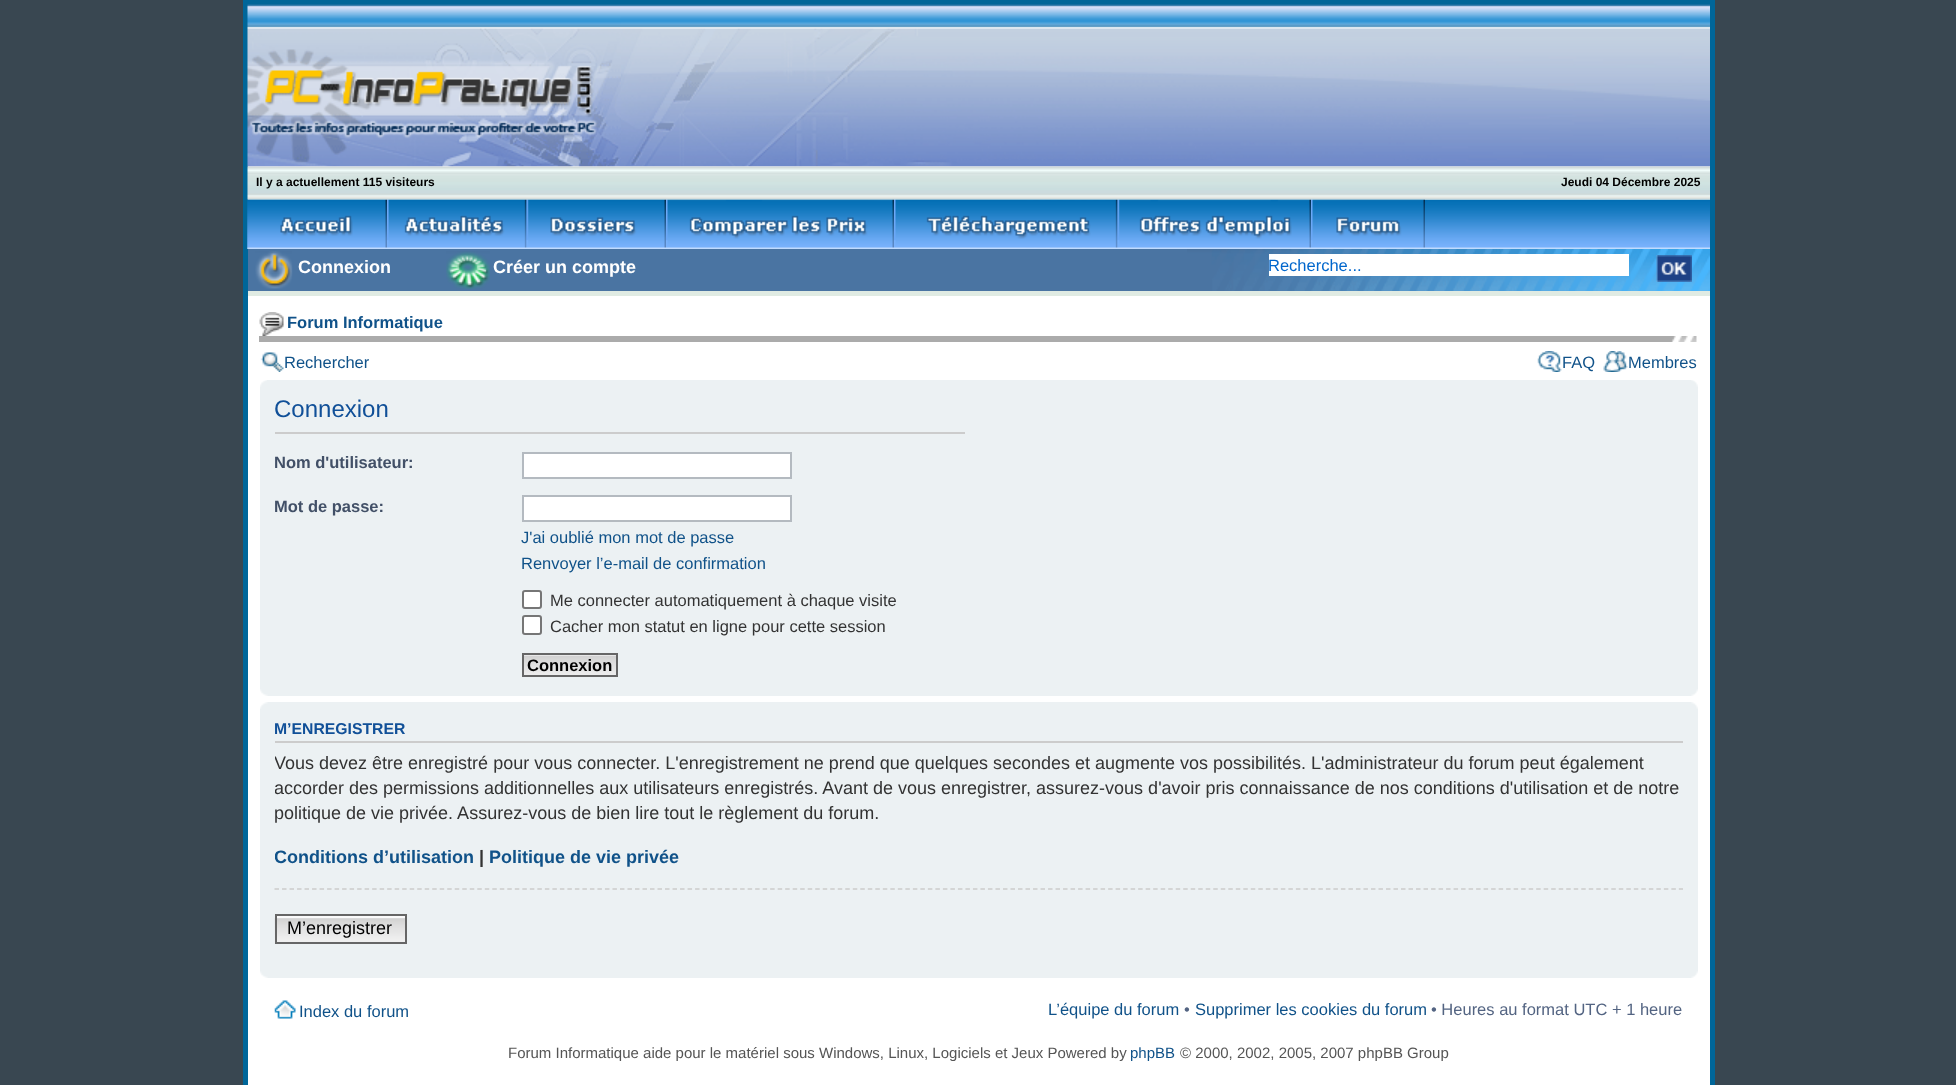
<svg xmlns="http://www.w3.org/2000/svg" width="1956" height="1085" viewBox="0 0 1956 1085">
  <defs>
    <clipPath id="clip1"><rect x="275" y="446" width="690" height="43"/></clipPath>
    <clipPath id="clip2"><rect x="275" y="489" width="690" height="95"/></clipPath>
    <clipPath id="clip3"><rect x="275" y="710" width="1408" height="261"/></clipPath>
  </defs>
  <rect width="100%" height="100%" fill="#394751"/>
  <rect x="248" y="166" width="1462" height="919" fill="#ffffff"/>
  <rect x="245.5" y="2.5" width="1467" height="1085" fill="none" stroke="#006699" stroke-width="5"/>
  <image x="247" y="4" width="374" height="163" href="img1.png"/>
  <image x="621" y="4" width="1089" height="163" href="img2.png"/>
  <image x="247" y="199" width="1463" height="50" href="img4.png"/>
  <image x="247" y="199" width="140" height="50" href="img5.png"/>
  <image x="387" y="199" width="140" height="49" href="img6.png"/>
  <image x="526" y="199" width="140" height="49" href="img7.png"/>
  <image x="666" y="199" width="228" height="49" href="img8.png"/>
  <image x="894" y="199" width="224" height="49" href="img9.png"/>
  <image x="1117" y="199" width="194" height="49" href="img10.png"/>
  <image x="1311" y="199" width="114" height="49" href="img11.png"/>
  <image x="247" y="166" width="1463" height="34" href="img3.png"/>
  <text x="256" y="186" font-family="Liberation Sans" font-size="12" font-weight="bold" fill="#000000">Il y a actuellement 115 visiteurs</text>
  <text x="1561" y="186" font-family="Liberation Sans" font-size="12" font-weight="bold" fill="#000000">Jeudi 04 Décembre 2025</text>
  <rect x="248" y="249" width="939" height="42" fill="#4a74a2"/>
  <image x="255" y="251" width="38" height="38" href="img12.png"/>
  <text x="298" y="273" font-family="Liberation Sans" font-size="18" font-weight="bold" fill="#ffffff">Connexion</text>
  <image x="446" y="251" width="44" height="38" href="img13.png"/>
  <text x="493" y="273" font-family="Liberation Sans" font-size="18" font-weight="bold" fill="#ffffff">Créer un compte</text>
  <image x="1187" y="249" width="523" height="42" href="img14.png"/>
  <rect x="1269" y="254" width="360" height="22" fill="#ffffff"/>
  <text x="1268" y="271" font-family="Liberation Sans" font-size="16.5" fill="#0066cc">Recherche...</text>
  <image x="1656" y="255" width="36" height="27" href="img15.png"/>
  <rect x="248" y="291" width="1462" height="5" fill="#e0ebe3"/>
  <image x="259" y="312" width="25" height="24" href="img16.png"/>
  <text x="287" y="328" font-family="Liberation Sans" font-size="16.5" font-weight="bold" fill="#105289">Forum Informatique</text>
  <rect x="259" y="336" width="1439" height="6" fill="#ababab"/>
  <image x="1671" y="336" width="27" height="6" href="img17.png"/>
  <image x="260" y="352" width="24" height="20" href="img18.png"/>
  <text x="284" y="368" font-family="Liberation Sans" font-size="16.5" fill="#105289">Rechercher</text>
  <image x="1537" y="351" width="25" height="21" href="img19.png"/>
  <text x="1562" y="368" font-family="Liberation Sans" font-size="16.5" fill="#105289">FAQ</text>
  <image x="1603" y="351" width="25" height="21" href="img20.png"/>
  <text x="1628" y="368" font-family="Liberation Sans" font-size="16.5" fill="#105289">Membres</text>
  <rect x="260" y="380" width="1438" height="316" fill="#ecf1f3"/>
  <image x="260" y="380" width="7" height="7" href="img21.png"/>
  <image x="1691" y="380" width="7" height="7" href="img22.png"/>
  <rect x="275" y="432" width="690" height="2" fill="#cccccc"/>
  <text x="274" y="417" font-family="Liberation Sans" font-size="24" fill="#115098">Connexion</text>
  <g clip-path="url(#clip1)">
    <text x="274" y="468" font-family="Liberation Sans" font-size="16.5" font-weight="bold" fill="#425067">Nom d'utilisateur:</text>
  </g>
  <rect x="523" y="453" width="268" height="25" fill="#ffffff" stroke="#b4bac0" stroke-width="2"/>
  <g clip-path="url(#clip2)">
    <text x="274" y="512" font-family="Liberation Sans" font-size="16.5" font-weight="bold" fill="#425067">Mot de passe:</text>
  </g>
  <rect x="523" y="496" width="268" height="25" fill="#ffffff" stroke="#b4bac0" stroke-width="2"/>
  <text x="521" y="543" font-family="Liberation Sans" font-size="16.5" fill="#105289">J'ai oublié mon mot de passe</text>
  <text x="521" y="569" font-family="Liberation Sans" font-size="16.5" fill="#105289">Renvoyer l’e-mail de confirmation</text>
  <rect x="523" y="591" width="18" height="17" rx="2" fill="#ffffff" stroke="#767676" stroke-width="2"/>
  <text x="550" y="606" font-family="Liberation Sans" font-size="16.5" fill="#333333">Me connecter automatiquement à chaque visite</text>
  <rect x="523" y="616" width="18" height="18" rx="2" fill="#ffffff" stroke="#767676" stroke-width="2"/>
  <text x="550" y="632" font-family="Liberation Sans" font-size="16.5" fill="#333333">Cacher mon statut en ligne pour cette session</text>
  <image x="524" y="655" width="92" height="20" href="img23.png"/>
  <rect x="523" y="654" width="94" height="22" fill="none" stroke="#666666" stroke-width="2"/>
  <text x="527" y="671" font-family="Liberation Sans" font-size="16.5" font-weight="bold" fill="#000000">Connexion</text>
  <image x="260" y="689" width="8" height="7" href="img24.png"/>
  <image x="1691" y="689" width="7" height="7" href="img25.png"/>
  <rect x="260" y="702" width="1438" height="276" fill="#ecf1f3"/>
  <image x="260" y="702" width="8" height="7" href="img26.png"/>
  <image x="1691" y="702" width="7" height="7" href="img27.png"/>
  <rect x="275" y="741" width="1408" height="2" fill="#cccccc"/>
  <g clip-path="url(#clip3)">
    <text x="274" y="734" font-family="Liberation Sans" font-size="15.75" font-weight="bold" fill="#115098">M’ENREGISTRER</text>
    <text x="274" y="769" font-family="Liberation Sans" font-size="18" fill="#333333">Vous devez être enregistré pour vous connecter. L'enregistrement ne prend que quelques secondes et augmente vos possibilités. L'administrateur du forum peut également</text>
    <text x="274" y="794" font-family="Liberation Sans" font-size="18" fill="#333333">accorder des permissions additionnelles aux utilisateurs enregistrés. Avant de vous enregistrer, assurez-vous d'avoir pris connaissance de nos conditions d'utilisation et de notre</text>
  </g>
  <text x="274" y="819" font-family="Liberation Sans" font-size="18" fill="#333333">politique de vie privée. Assurez-vous de bien lire tout le règlement du forum.</text>
  <g clip-path="url(#clip3)">
    <text x="274" y="863" font-family="Liberation Sans" font-size="18" font-weight="bold" fill="#105289">Conditions d’utilisation</text>
  </g>
  <text x="479" y="863" font-family="Liberation Sans" font-size="18" font-weight="bold" fill="#333333">|</text>
  <text x="489" y="863" font-family="Liberation Sans" font-size="18" font-weight="bold" fill="#105289">Politique de vie privée</text>
  <path d="M274.5 889H1683" fill="none" stroke="#cccccc" stroke-width="1.5" stroke-dasharray="4.5 3.01"/>
  <image x="274" y="918" width="131" height="26" href="img28.png"/>
  <rect x="277" y="916" width="128" height="2" fill="#fafafa"/>
  <rect x="276" y="915" width="130" height="28" fill="none" stroke="#666666" stroke-width="2"/>
  <text x="287" y="934" font-family="Liberation Sans" font-size="18" fill="#000000">M’enregistrer</text>
  <image x="260" y="971" width="8" height="7" href="img24.png"/>
  <image x="1691" y="971" width="7" height="7" href="img25.png"/>
  <image x="274" y="1000" width="22" height="19" href="img29.png"/>
  <text x="299" y="1017" font-family="Liberation Sans" font-size="16.5" fill="#105289">Index du forum</text>
  <text x="1048" y="1015" font-family="Liberation Sans" font-size="16.5" fill="#105289">L’équipe du forum</text>
  <text x="1184" y="1015" font-family="Liberation Sans" font-size="16.5" fill="#536482">•</text>
  <text x="1195" y="1015" font-family="Liberation Sans" font-size="16.5" fill="#105289">Supprimer les cookies du forum</text>
  <text x="1431" y="1015" font-family="Liberation Sans" font-size="16.5" fill="#536482">• Heures au format UTC + 1 heure</text>
  <text x="508" y="1058" font-family="Liberation Sans" font-size="15" fill="#555555">Forum Informatique aide pour le matériel sous Windows, Linux, Logiciels et Jeux Powered by</text>
  <text x="1130" y="1058" font-family="Liberation Sans" font-size="15" fill="#105289">phpBB</text>
  <text x="1180" y="1058" font-family="Liberation Sans" font-size="15" fill="#555555">© 2000, 2002, 2005, 2007 phpBB Group</text>
</svg>
